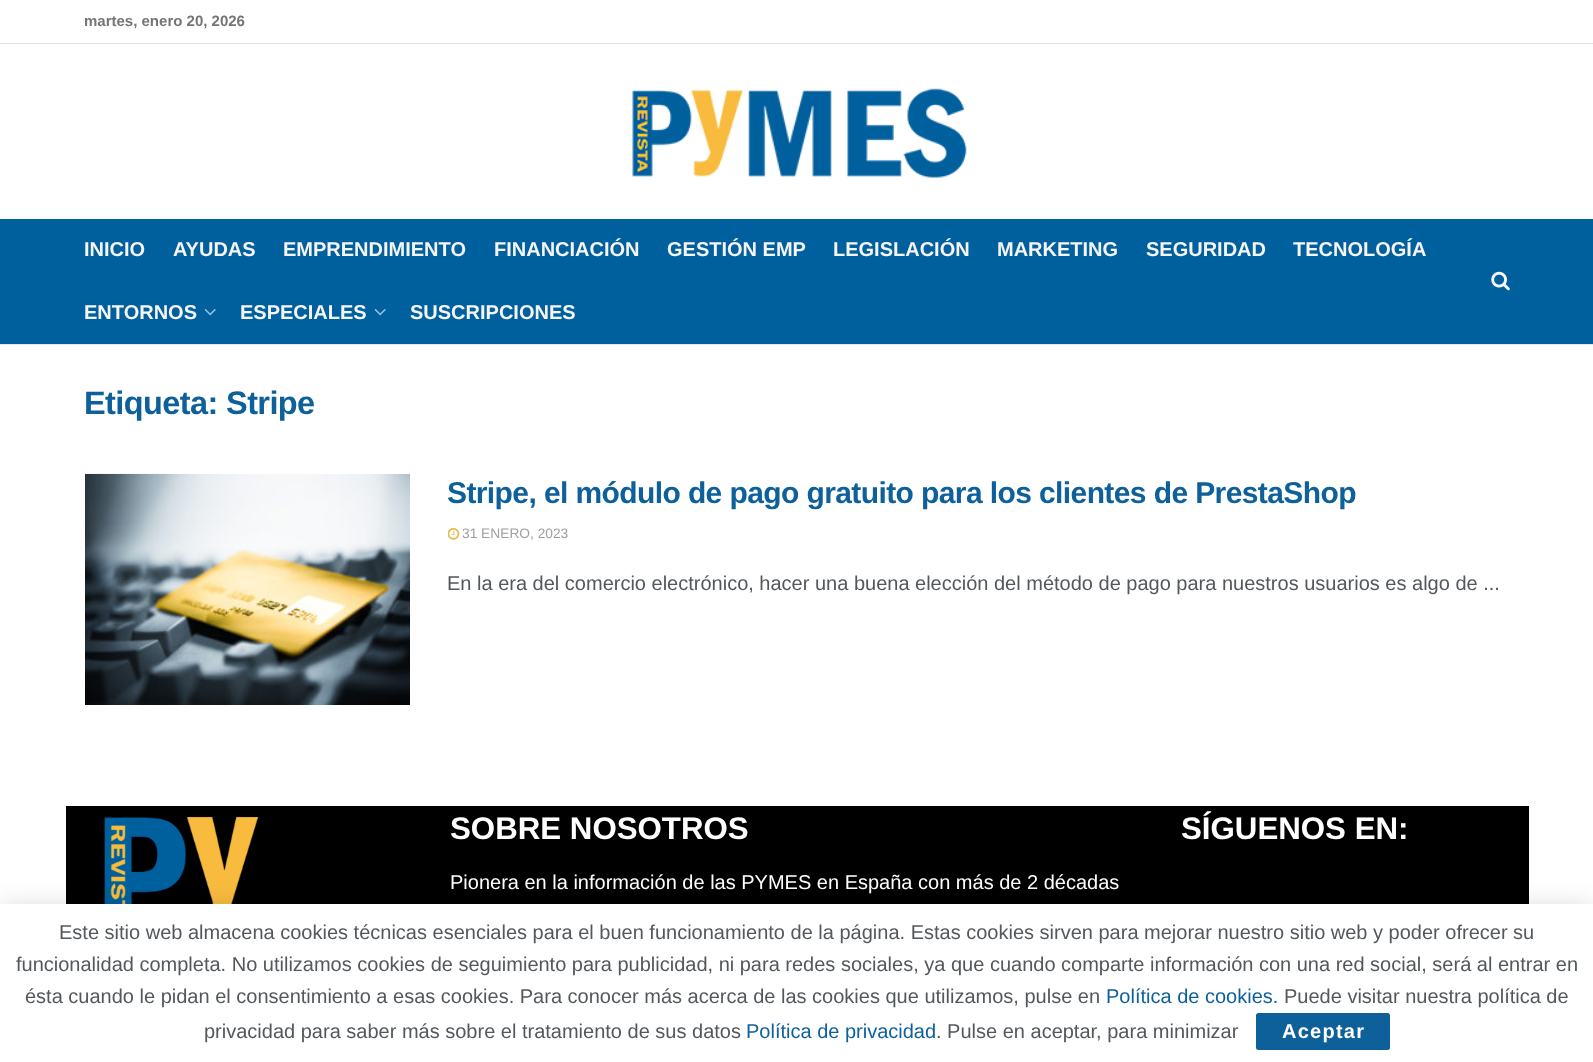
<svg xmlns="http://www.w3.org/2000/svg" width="1593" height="1062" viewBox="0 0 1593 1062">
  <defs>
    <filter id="blur1" x="-50%" y="-200%" width="200%" height="500%"><feGaussianBlur stdDeviation="12.5"/></filter>
  </defs>
  <rect width="100%" height="100%" fill="#ffffff"/>
  <rect x="0" y="43" width="1593" height="1" fill="#e0e0e0"/>
  <text x="84" y="26" font-family="Liberation Sans" font-size="15" font-weight="bold" fill="#757575">martes, enero 20, 2026</text>
  <image x="632" y="88" width="335" height="90" href="img1.png"/>
  <rect x="0" y="219" width="1593" height="125" fill="#00609e"/>
  <rect x="0" y="344" width="1593" height="1" fill="#e8e8e8"/>
  <text x="84" y="256" font-family="Liberation Sans" font-size="20" font-weight="bold" fill="#f5f5f5">INICIO</text>
  <text x="173" y="256" font-family="Liberation Sans" font-size="20" font-weight="bold" fill="#f5f5f5">AYUDAS</text>
  <text x="283" y="256" font-family="Liberation Sans" font-size="20" font-weight="bold" fill="#f5f5f5">EMPRENDIMIENTO</text>
  <text x="494" y="256" font-family="Liberation Sans" font-size="20" font-weight="bold" fill="#f5f5f5">FINANCIACIÓN</text>
  <text x="667" y="256" font-family="Liberation Sans" font-size="20" font-weight="bold" fill="#f5f5f5">GESTIÓN EMP</text>
  <text x="833" y="256" font-family="Liberation Sans" font-size="20" font-weight="bold" fill="#f5f5f5">LEGISLACIÓN</text>
  <text x="997" y="256" font-family="Liberation Sans" font-size="20" font-weight="bold" fill="#f5f5f5">MARKETING</text>
  <text x="1146" y="256" font-family="Liberation Sans" font-size="20" font-weight="bold" fill="#f5f5f5">SEGURIDAD</text>
  <text x="1293" y="256" font-family="Liberation Sans" font-size="20" font-weight="bold" fill="#f5f5f5">TECNOLOGÍA</text>
  <text x="84" y="319" font-family="Liberation Sans" font-size="20" font-weight="bold" fill="#f5f5f5">ENTORNOS</text>
  <image x="204" y="309" width="12" height="7" href="img2.png"/>
  <text x="240" y="319" font-family="Liberation Sans" font-size="20" font-weight="bold" fill="#f5f5f5">ESPECIALES</text>
  <image x="374" y="309" width="12" height="7" href="img2.png"/>
  <text x="410" y="319" font-family="Liberation Sans" font-size="20" font-weight="bold" fill="#f5f5f5">SUSCRIPCIONES</text>
  <image x="1491" y="271" width="19" height="20" href="img3.png"/>
  <text x="84" y="414" font-family="Liberation Sans" font-size="32.5" font-weight="bold" letter-spacing="-0.6" fill="#0e609b">Etiqueta: Stripe</text>
  <image x="85" y="473" width="325" height="232" href="img4.png"/>
  <text x="447" y="503" font-family="Liberation Sans" font-size="30" font-weight="bold" letter-spacing="-0.6" fill="#0e609b">Stripe, el módulo de pago gratuito para los clientes de PrestaShop</text>
  <image x="448" y="527" width="12" height="13" href="img5.png"/>
  <text x="462" y="538" font-family="Liberation Sans" font-size="13.75" fill="#a0a0a0">31 ENERO, 2023</text>
  <text x="447" y="590" font-family="Liberation Sans" font-size="20" fill="#53585c">En la era del comercio electrónico, hacer una buena elección del método de pago para nuestros usuarios es algo de ...</text>
  <rect x="66" y="806" width="1463" height="98" fill="#000000"/>
  <image x="104" y="817" width="155" height="87" href="img6.png"/>
  <text x="450" y="839" font-family="Liberation Sans" font-size="31.25" font-weight="bold" fill="#ffffff">SOBRE NOSOTROS</text>
  <text x="450" y="889" font-family="Liberation Sans" font-size="20" fill="#ffffff">Pionera en la información de las PYMES en España con más de 2 décadas</text>
  <text x="1181" y="839" font-family="Liberation Sans" font-size="31.25" font-weight="bold" fill="#ffffff">SÍGUENOS EN:</text>
  <rect x="0" y="906" width="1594" height="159" fill="#000000" fill-opacity="0.15" filter="url(#blur1)"/>
  <rect x="0" y="904" width="1593" height="158" fill="#ffffff"/>
  <text x="59" y="939" font-family="Liberation Sans" font-size="20" fill="#53585c">Este sitio web almacena cookies técnicas esenciales para el buen funcionamiento de la página. Estas cookies sirven para mejorar nuestro sitio web y poder ofrecer su</text>
  <text x="16" y="971" font-family="Liberation Sans" font-size="20" fill="#53585c">funcionalidad completa. No utilizamos cookies de seguimiento para publicidad, ni para redes sociales, ya que cuando comparte información con una red social, será al entrar en</text>
  <text x="25" y="1003" font-family="Liberation Sans" font-size="20" fill="#53585c">ésta cuando le pidan el consentimiento a esas cookies. Para conocer más acerca de las cookies que utilizamos, pulse en</text>
  <text x="1106" y="1003" font-family="Liberation Sans" font-size="20" fill="#0e609b">Política de cookies.</text>
  <text x="1284" y="1003" font-family="Liberation Sans" font-size="20" fill="#53585c">Puede visitar nuestra política de</text>
  <text x="204" y="1038" font-family="Liberation Sans" font-size="20" fill="#53585c">privacidad para saber más sobre el tratamiento de sus datos</text>
  <text x="746" y="1038" font-family="Liberation Sans" font-size="20" fill="#0e609b">Política de privacidad</text>
  <text x="936" y="1038" font-family="Liberation Sans" font-size="20" fill="#53585c">. Pulse en aceptar, para minimizar</text>
  <rect x="1256" y="1013" width="134" height="37" rx="2.5" fill="#0e609b"/>
  <text x="1282" y="1038" font-family="Liberation Sans" font-size="20" font-weight="bold" letter-spacing="1.25" fill="#ffffff">Aceptar</text>
</svg>
